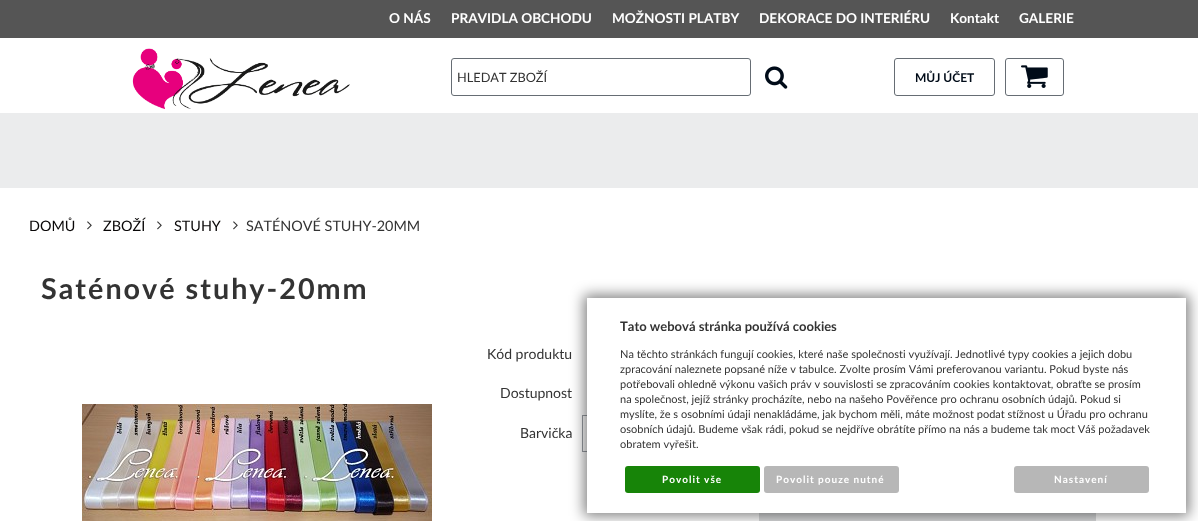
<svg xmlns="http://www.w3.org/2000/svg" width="1198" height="521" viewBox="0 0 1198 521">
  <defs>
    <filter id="blur1" x="-50%" y="-200%" width="200%" height="500%"><feGaussianBlur stdDeviation="7"/></filter>
  </defs>
  <rect width="100%" height="100%" fill="#ffffff"/>
  <rect x="0" y="0" width="1198" height="38" fill="#555555"/>
  <text x="389" y="23" font-family="Lato" font-size="13.6" font-weight="bold" fill="#ffffff">O NÁS</text>
  <text x="451" y="23" font-family="Lato" font-size="13.6" font-weight="bold" fill="#ffffff">PRAVIDLA OBCHODU</text>
  <text x="612" y="23" font-family="Lato" font-size="13.6" font-weight="bold" fill="#ffffff">MOŽNOSTI PLATBY</text>
  <text x="759" y="23" font-family="Lato" font-size="13.6" font-weight="bold" fill="#ffffff">DEKORACE DO INTERIÉRU</text>
  <text x="950" y="23" font-family="Lato" font-size="13.6" font-weight="bold" fill="#ffffff">Kontakt</text>
  <text x="1019" y="23" font-family="Lato" font-size="13.6" font-weight="bold" fill="#ffffff">GALERIE</text>
  <image x="132" y="48" width="218" height="61" href="img1.png"/>
  <rect x="451.5" y="58.5" width="299" height="37" rx="2.5" fill="none" stroke="#666d74"/>
  <text x="457" y="82" font-family="Lato" font-size="12.75" fill="#333333">HLEDAT ZBOŽÍ</text>
  <image x="765" y="66" width="23" height="23" href="img2.png"/>
  <rect x="894.5" y="58.5" width="100" height="37" rx="2.5" fill="none" stroke="#666d74"/>
  <text x="915" y="82" font-family="Lato" font-size="12" font-weight="bold" fill="#000b18">MŮJ ÚČET</text>
  <rect x="1005.5" y="58.5" width="58" height="37" rx="2.5" fill="none" stroke="#666d74"/>
  <image x="1021" y="65" width="27" height="23" href="img3.png"/>
  <rect x="0" y="113" width="1198" height="75" fill="#ebeced"/>
  <text x="29" y="231" font-family="Lato" font-size="14.4" fill="#090707">DOMŮ</text>
  <image x="87" y="221" width="5" height="9" href="img4.png"/>
  <text x="103" y="231" font-family="Lato" font-size="14.4" fill="#090707">ZBOŽÍ</text>
  <image x="157" y="221" width="5" height="9" href="img4.png"/>
  <text x="174" y="231" font-family="Lato" font-size="14.4" fill="#090707">STUHY</text>
  <image x="233" y="221" width="5" height="9" href="img4.png"/>
  <text x="246" y="231" font-family="Lato" font-size="14.4" fill="#333333">SATÉNOVÉ STUHY-20MM</text>
  <text x="41" y="299" font-family="Lato" font-size="28.75" font-weight="bold" letter-spacing="2" fill="#333333">Saténové stuhy-20mm</text>
  <text x="487" y="359" font-family="Lato" font-size="14" fill="#333333">Kód produktu</text>
  <text x="500" y="398" font-family="Lato" font-size="14" fill="#333333">Dostupnost</text>
  <text x="520" y="438" font-family="Lato" font-size="14" fill="#333333">Barvička</text>
  <rect x="582.5" y="415.5" width="135" height="36" fill="none" stroke="#999da3"/>
  <rect x="759" y="513" width="337" height="8" fill="#d9dadc"/>
  <image x="82" y="404" width="350" height="117" href="img5.png"/>
  <rect x="584" y="295" width="605" height="221" fill="#000000" fill-opacity="0.5" filter="url(#blur1)"/>
  <rect x="587" y="298" width="599" height="215" fill="#ffffff"/>
  <text x="620" y="331" font-family="Lato" font-size="13" font-weight="bold" fill="#333333">Tato webová stránka používá cookies</text>
  <text x="620" y="358" font-family="Lato" font-size="11" fill="#333333">Na těchto stránkách fungují cookies, které naše společnosti využívají. Jednotlivé typy cookies a jejich dobu</text>
  <text x="620" y="373" font-family="Lato" font-size="11" fill="#333333">zpracování naleznete popsané níže v tabulce. Zvolte prosím Vámi preferovanou variantu. Pokud byste nás</text>
  <text x="620" y="388" font-family="Lato" font-size="11" fill="#333333">potřebovali ohledně výkonu vašich práv v souvislosti se zpracováním cookies kontaktovat, obraťte se prosím</text>
  <text x="620" y="403" font-family="Lato" font-size="11" fill="#333333">na společnost, jejíž stránky procházíte, nebo na našeho Pověřence pro ochranu osobních údajů. Pokud si</text>
  <text x="620" y="418" font-family="Lato" font-size="11" fill="#333333">myslíte, že s osobními údaji nenakládáme, jak bychom měli, máte možnost podat stížnost u Úřadu pro ochranu</text>
  <text x="620" y="433" font-family="Lato" font-size="11" fill="#333333">osobních údajů. Budeme však rádi, pokud se nejdříve obrátíte přímo na nás a budeme tak moct Váš požadavek</text>
  <text x="620" y="448" font-family="Lato" font-size="11" fill="#333333">obratem vyřešit.</text>
  <rect x="625" y="466" width="135" height="27" rx="3" fill="#178408"/>
  <text x="662" y="483" font-family="Lato" font-size="10" font-weight="bold" letter-spacing="1" fill="#ffffff">Povolit vše</text>
  <rect x="764" y="466" width="135" height="27" rx="3" fill="#b7b7b7"/>
  <text x="776" y="483" font-family="Lato" font-size="10" font-weight="bold" letter-spacing="1" fill="#ffffff">Povolit pouze nutné</text>
  <rect x="1014" y="466" width="135" height="27" rx="3" fill="#b7b7b7"/>
  <text x="1054" y="483" font-family="Lato" font-size="10" font-weight="bold" letter-spacing="1" fill="#ffffff">Nastavení</text>
</svg>
